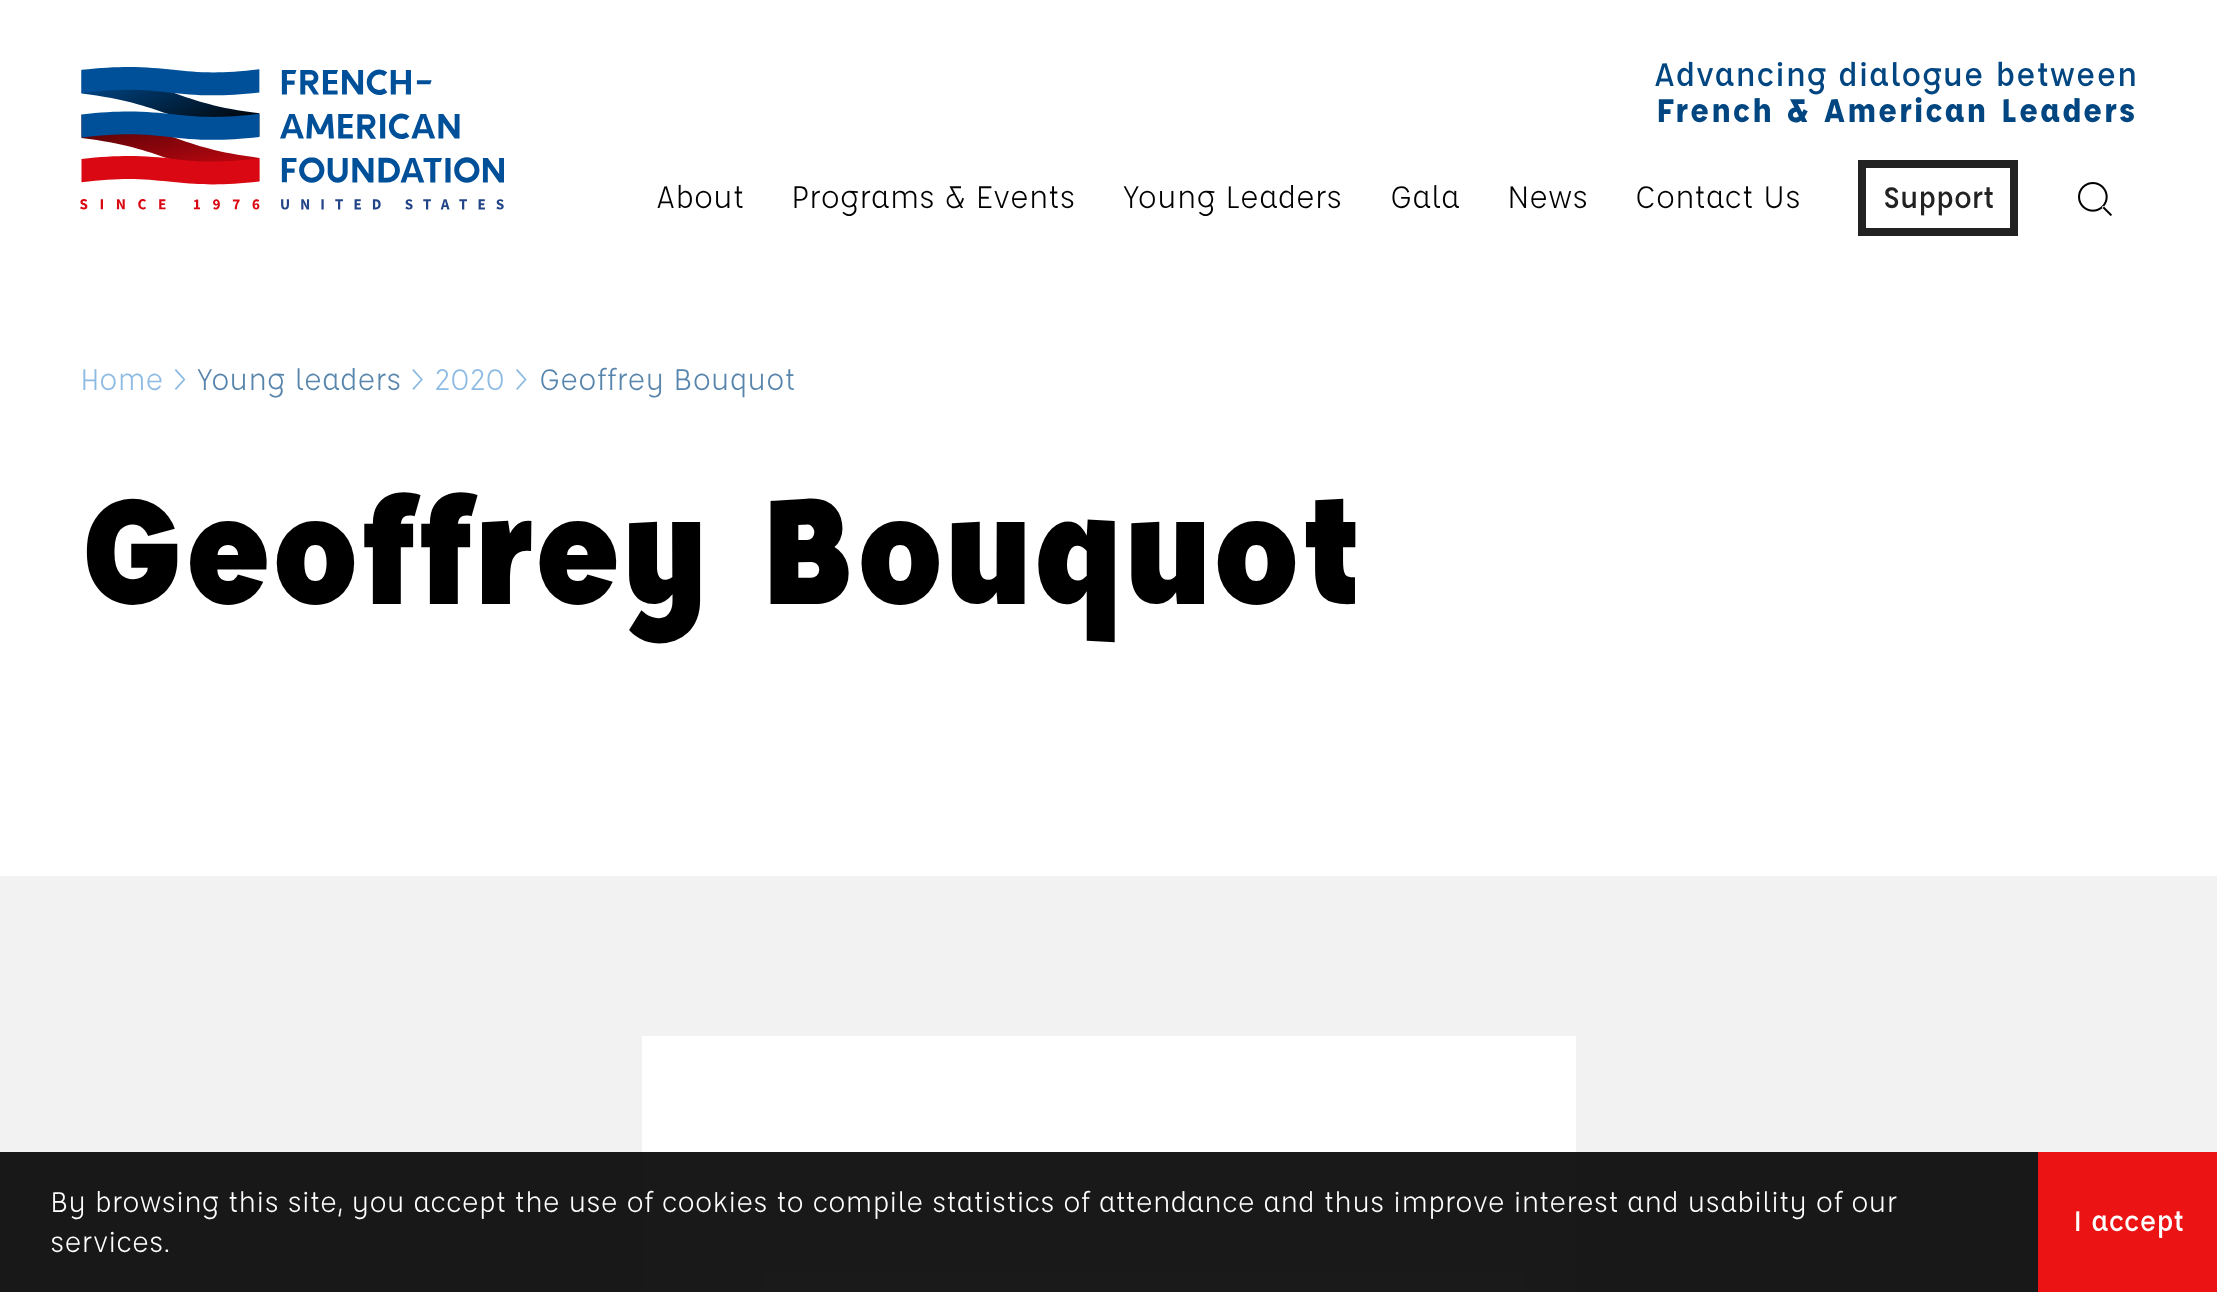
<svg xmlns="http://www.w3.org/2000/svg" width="2217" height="1292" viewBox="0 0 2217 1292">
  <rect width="100%" height="100%" fill="#ffffff"/>
  <image x="80" y="67" width="424" height="143" href="img1.png"/>
  <text x="1654" y="86" font-family="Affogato" font-size="35.75" font-weight="500" letter-spacing="0.8" fill="#014681">Advancing dialogue between</text>
  <text x="1656" y="122" font-family="Affogato" font-size="35.75" font-weight="bold" letter-spacing="1.8" fill="#014681">French &amp; American Leaders</text>
  <text x="656" y="208" font-family="Affogato" font-size="34.1" fill="#000000">About</text>
  <text x="791" y="208" font-family="Affogato" font-size="34.1" fill="#000000">Programs &amp; Events</text>
  <text x="1123" y="208" font-family="Affogato" font-size="34.1" fill="#000000">Young Leaders</text>
  <text x="1390" y="208" font-family="Affogato" font-size="34.1" fill="#000000">Gala</text>
  <text x="1507" y="208" font-family="Affogato" font-size="34.1" fill="#000000">News</text>
  <text x="1635" y="208" font-family="Affogato" font-size="34.1" fill="#000000">Contact Us</text>
  <rect x="1862" y="164" width="152" height="68" fill="none" stroke="#222222" stroke-width="8"/>
  <text x="1883" y="208" font-family="Affogato" font-size="32.5" font-weight="500" fill="#222222">Support</text>
  <image x="2078" y="182" width="34" height="34" href="img2.png"/>
  <text x="80" y="390" font-family="Affogato" font-size="32.5" fill="#8dbbe3">Home &gt;</text>
  <text x="197" y="390" font-family="Affogato" font-size="32.5" fill="#5885ac">Young leaders</text>
  <text x="410" y="390" font-family="Affogato" font-size="32.5" fill="#8dbbe3">&gt; 2020 &gt;</text>
  <text x="539" y="390" font-family="Affogato" font-size="32.5" fill="#5885ac">Geoffrey Bouquot</text>
  <text x="80" y="604" font-family="Affogato" font-size="164" font-weight="900" fill="#000000">Geoffrey Bouquot</text>
  <rect x="0" y="876" width="2217" height="416" fill="#f2f2f2"/>
  <rect x="642" y="1036" width="934" height="256" fill="#ffffff"/>
  <rect x="0" y="1152" width="2038" height="140" fill="#000000" fill-opacity="0.9"/>
  <text x="50" y="1212" font-family="Affogato" font-size="30.88" fill="#ffffff">By browsing this site, you accept the use of cookies to compile statistics of attendance and thus improve interest and usability of our</text>
  <rect x="2038" y="1152" width="179" height="140" fill="#eb1313"/>
  <text x="2073" y="1231" font-family="Affogato" font-size="30.88" font-weight="500" fill="#ffffff">I accept</text>
  <text x="50" y="1252" font-family="Affogato" font-size="30.88" fill="#ffffff">services.</text>
</svg>
